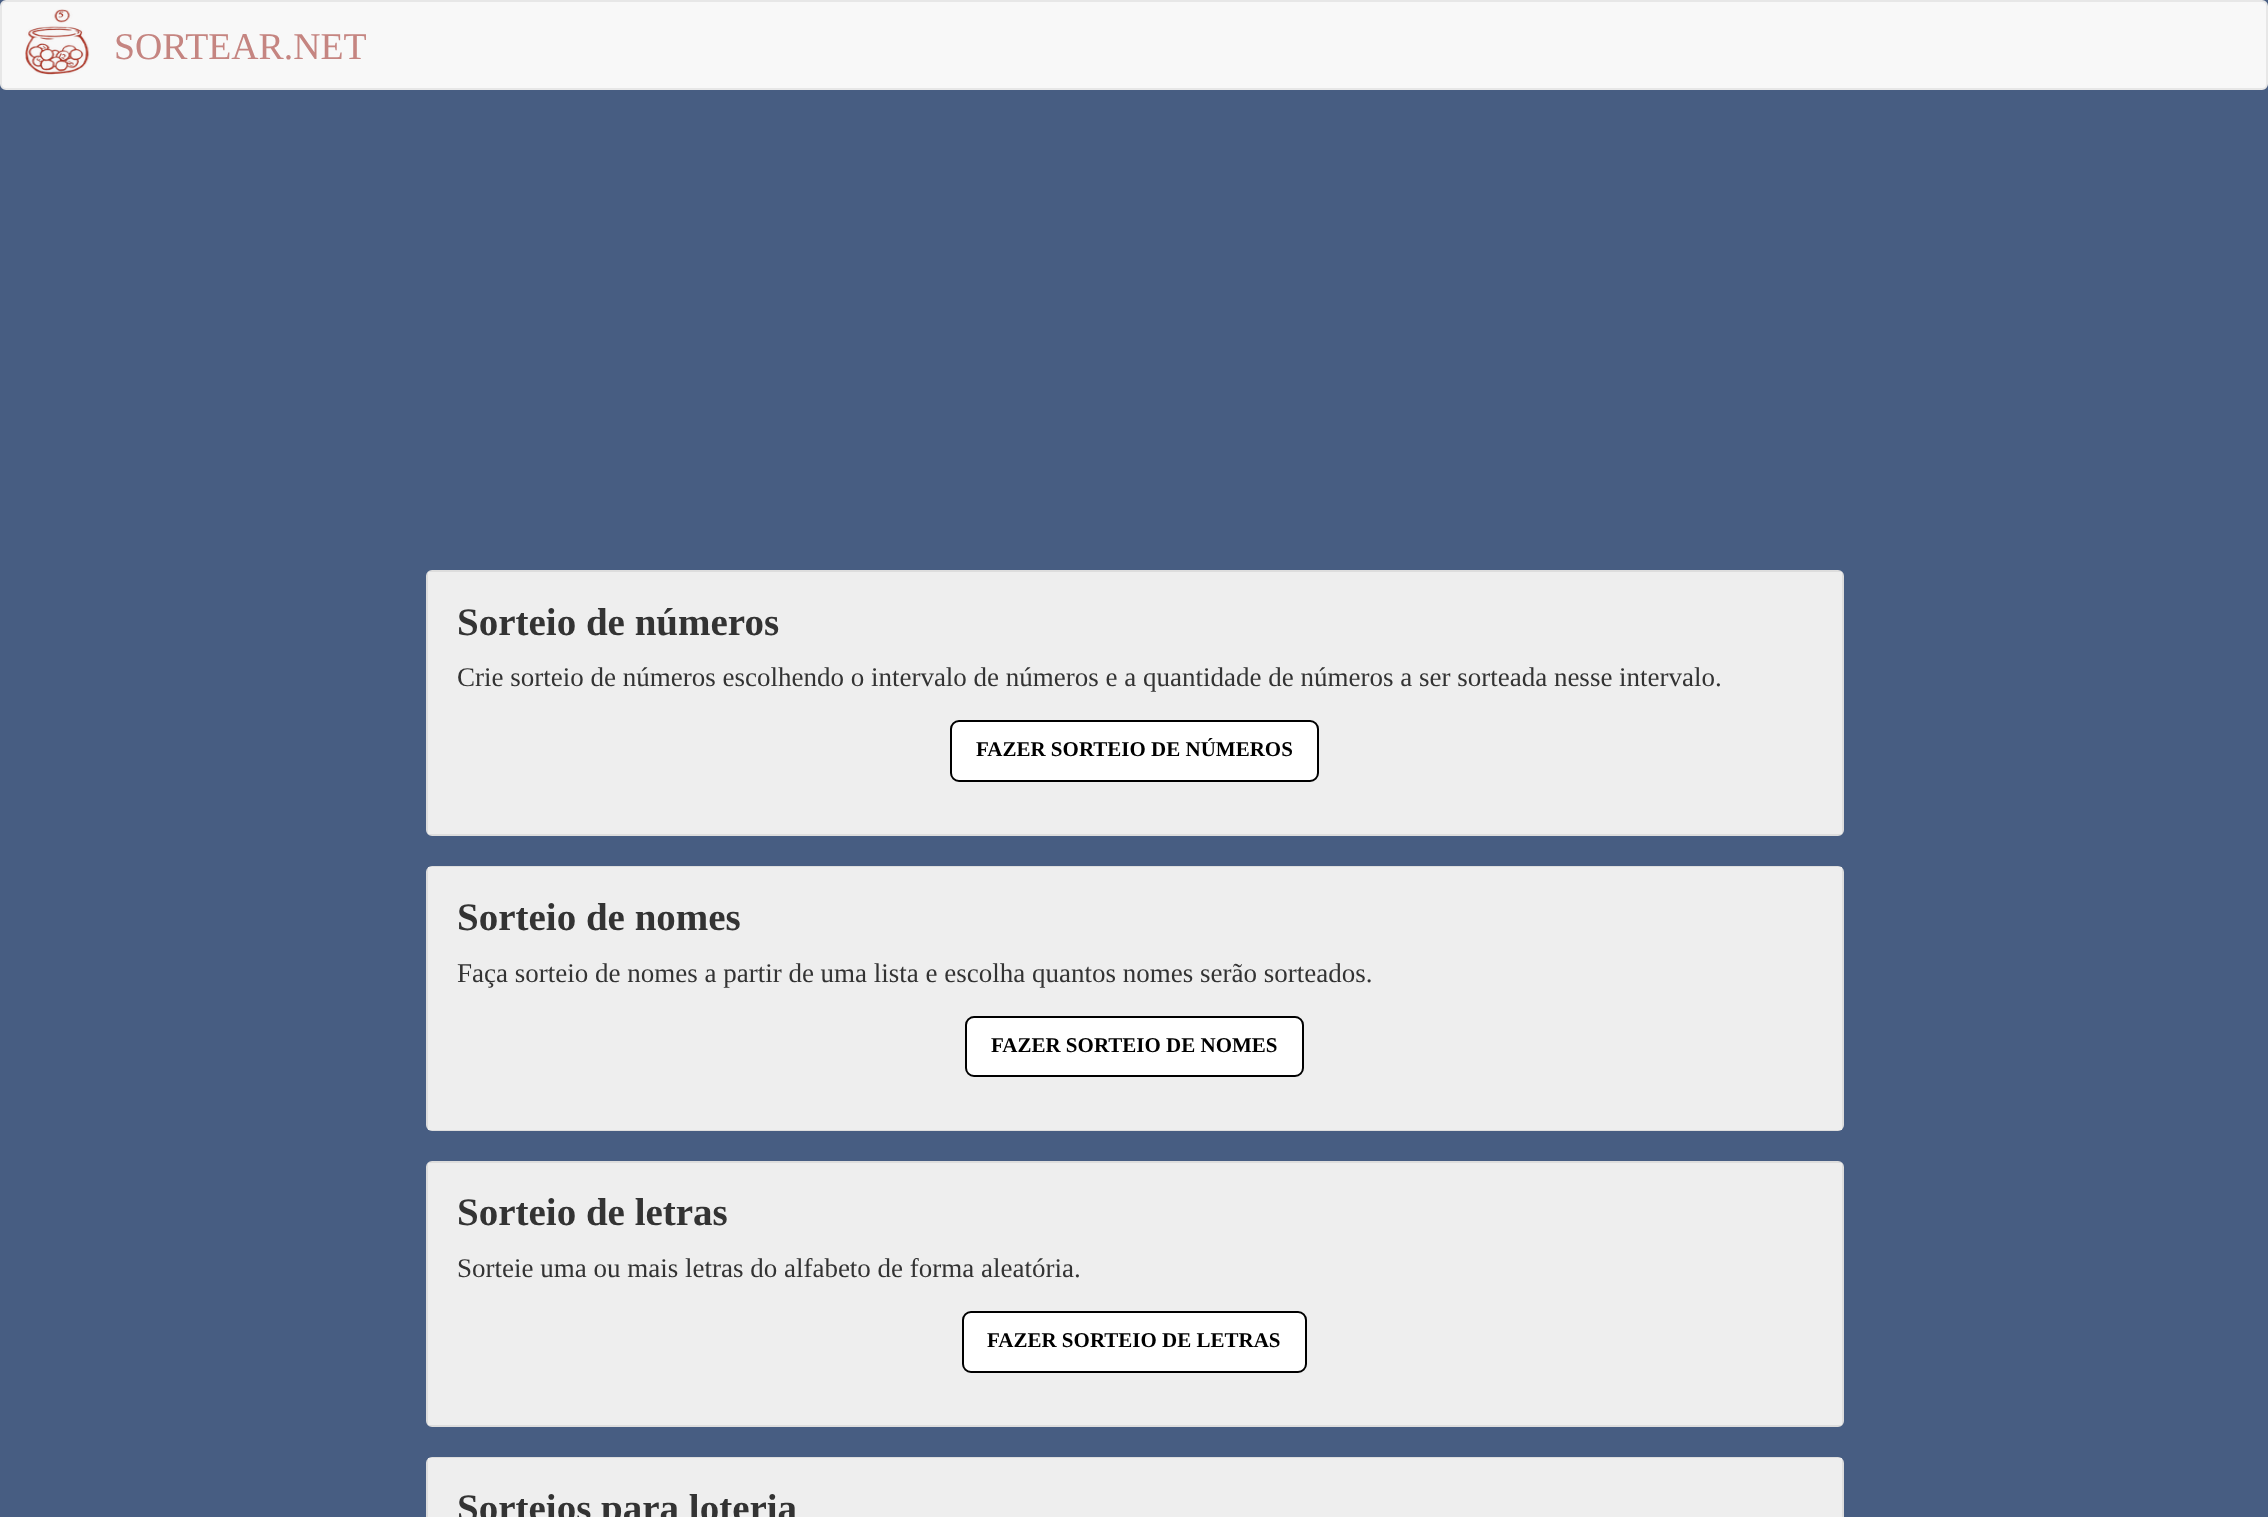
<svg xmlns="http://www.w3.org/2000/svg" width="2268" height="1517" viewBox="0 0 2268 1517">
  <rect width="100%" height="100%" fill="#475d82"/>
  <rect x="1" y="1" width="2266" height="88" rx="5" fill="#f8f8f8" stroke="#e7e7e7" stroke-width="2"/>
  <image x="25" y="9" width="65" height="66" href="img1.png"/>
  <text x="114" y="59" font-family="Liberation Serif" font-size="37.75" fill="#c58581">SORTEAR.NET</text>
  <rect x="427" y="571" width="1416" height="264" rx="5" fill="none" stroke="#dddddd" stroke-width="2"/>
  <rect x="428" y="572" width="1414" height="262" fill="#eeeeee"/>
  <text x="457" y="635" font-family="Liberation Serif" font-size="39" font-weight="bold" fill="#333333">Sorteio de números</text>
  <text x="457" y="686" font-family="Liberation Serif" font-size="27" fill="#333333">Crie sorteio de números escolhendo o intervalo de números e a quantidade de números a ser sorteada nesse intervalo.</text>
  <rect x="951" y="721" width="367" height="60" rx="8" fill="#ffffff" stroke="#000000" stroke-width="2"/>
  <text x="976" y="756" font-family="Liberation Serif" font-size="21" font-weight="bold" fill="#000000">FAZER SORTEIO DE NÚMEROS</text>
  <rect x="427" y="867" width="1416" height="263" rx="5" fill="none" stroke="#dddddd" stroke-width="2"/>
  <rect x="428" y="867" width="1414" height="263" fill="#eeeeee"/>
  <text x="457" y="930" font-family="Liberation Serif" font-size="39" font-weight="bold" fill="#333333">Sorteio de nomes</text>
  <text x="457" y="982" font-family="Liberation Serif" font-size="27" fill="#333333">Faça sorteio de nomes a partir de uma lista e escolha quantos nomes serão sorteados.</text>
  <rect x="966" y="1017" width="337" height="59" rx="8" fill="#ffffff" stroke="#000000" stroke-width="2"/>
  <text x="991" y="1052" font-family="Liberation Serif" font-size="21" font-weight="bold" fill="#000000">FAZER SORTEIO DE NOMES</text>
  <rect x="427" y="1162" width="1416" height="264" rx="5" fill="none" stroke="#dddddd" stroke-width="2"/>
  <rect x="428" y="1163" width="1414" height="262" fill="#eeeeee"/>
  <text x="457" y="1225" font-family="Liberation Serif" font-size="39" font-weight="bold" fill="#333333">Sorteio de letras</text>
  <text x="457" y="1277" font-family="Liberation Serif" font-size="27" fill="#333333">Sorteie uma ou mais letras do alfabeto de forma aleatória.</text>
  <rect x="963" y="1312" width="343" height="60" rx="8" fill="#ffffff" stroke="#000000" stroke-width="2"/>
  <text x="987" y="1347" font-family="Liberation Serif" font-size="21" font-weight="bold" fill="#000000">FAZER SORTEIO DE LETRAS</text>
  <rect x="427" y="1458" width="1416" height="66" rx="5" fill="none" stroke="#dddddd" stroke-width="2"/>
  <rect x="428" y="1458" width="1414" height="59" fill="#eeeeee"/>
  <text x="457" y="1521" font-family="Liberation Serif" font-size="39" font-weight="bold" fill="#333333">Sorteios para loteria</text>
</svg>
